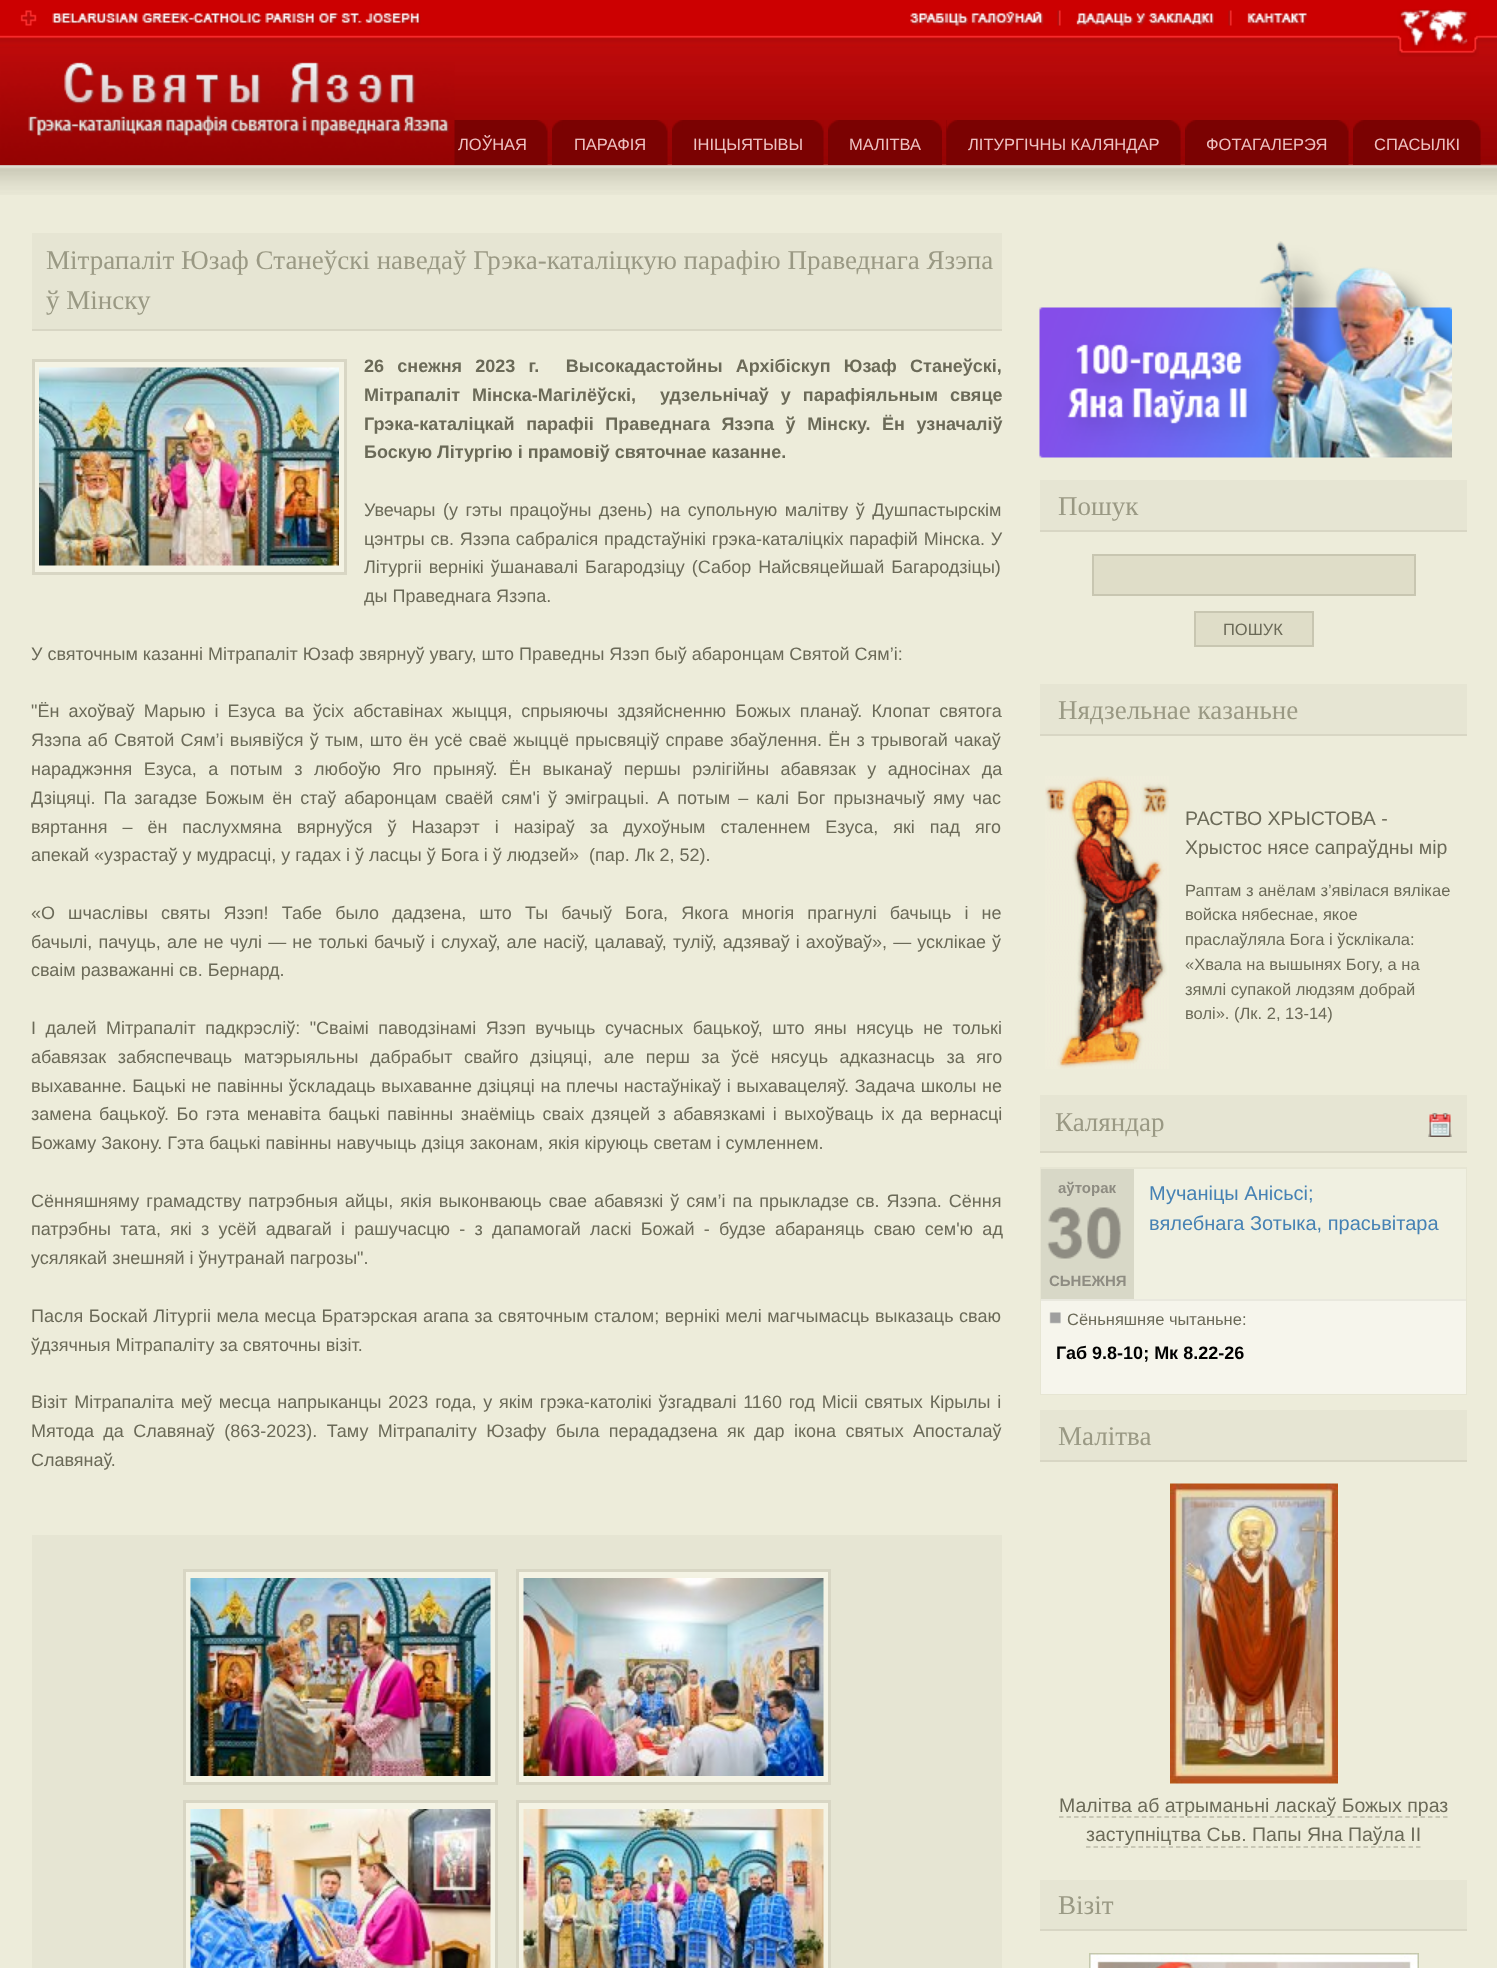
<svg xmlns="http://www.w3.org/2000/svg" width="1497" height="1968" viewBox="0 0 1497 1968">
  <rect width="100%" height="100%" fill="#edecda"/>
  <image x="0" y="0" width="1497" height="195" href="img1.png"/>
  <image x="20" y="10" width="401" height="16" href="img2.png"/>
  <image x="910" y="10" width="398" height="17" href="img3.png"/>
  <image x="1397" y="9" width="82" height="48" href="img4.png"/>
  <image x="454" y="120" width="94" height="45" href="img6.png"/>
  <image x="0" y="62" width="455" height="103" href="img5.png"/>
  <text x="458" y="150" font-family="Liberation Sans" font-size="16.5" fill="#eec1c1">ЛОЎНАЯ</text>
  <image x="552" y="120" width="116" height="45" href="img7.png"/>
  <image x="552" y="120" width="11" height="10" href="img8.png"/>
  <text x="574" y="150" font-family="Liberation Sans" font-size="16.5" fill="#eec1c1">ПАРАФІЯ</text>
  <image x="672" y="120" width="152" height="45" href="img9.png"/>
  <image x="672" y="120" width="11" height="10" href="img8.png"/>
  <text x="693" y="150" font-family="Liberation Sans" font-size="16.5" fill="#eec1c1">ІНІЦЫЯТЫВЫ</text>
  <image x="828" y="120" width="114" height="45" href="img10.png"/>
  <image x="828" y="120" width="11" height="10" href="img8.png"/>
  <text x="849" y="150" font-family="Liberation Sans" font-size="16.5" fill="#eec1c1">МАЛІТВА</text>
  <image x="946" y="120" width="235" height="45" href="img11.png"/>
  <image x="946" y="120" width="11" height="45" href="img12.png"/>
  <text x="968" y="150" font-family="Liberation Sans" font-size="16.5" fill="#eec1c1">ЛІТУРГІЧНЫ КАЛЯНДАР</text>
  <image x="1185" y="120" width="164" height="45" href="img13.png"/>
  <image x="1185" y="120" width="11" height="10" href="img14.png"/>
  <text x="1206" y="150" font-family="Liberation Sans" font-size="16.5" fill="#eec1c1">ФОТАГАЛЕРЭЯ</text>
  <image x="1353" y="120" width="128" height="45" href="img15.png"/>
  <image x="1353" y="120" width="11" height="10" href="img14.png"/>
  <text x="1374" y="150" font-family="Liberation Sans" font-size="16.5" fill="#eec1c1">СПАСЫЛКІ</text>
  <rect x="32" y="233" width="970" height="96" fill="#e6e5d3"/>
  <rect x="32" y="329" width="970" height="2" fill="#d8d6c4"/>
  <text x="46" y="269" font-family="Liberation Serif" font-size="27" fill="#9a9984">Мітрапаліт Юзаф Станеўскі наведаў Грэка-каталіцкую парафію Праведнага Язэпа</text>
  <text x="46" y="309" font-family="Liberation Serif" font-size="27" fill="#9a9984">ў Мінску</text>
  <rect x="33.5" y="360.5" width="312" height="213" fill="#f4f3e4" stroke="#d8d6c4" stroke-width="3"/>
  <image x="39" y="367" width="300" height="199" href="img16.png"/>
  <text x="364" y="372" word-spacing="8.25" font-family="Liberation Sans" font-size="18" font-weight="bold" fill="#6b6a58" xml:space="preserve">26 снежня 2023 г.  Высокадастойны Архібіскуп Юзаф Станеўскі,</text>
  <text x="364" y="401" word-spacing="7" font-family="Liberation Sans" font-size="18" font-weight="bold" fill="#6b6a58" xml:space="preserve">Мітрапаліт Мінска-Магілёўскі,  удзельнічаў у парафіяльным свяце</text>
  <text x="364" y="430" word-spacing="6.5" font-family="Liberation Sans" font-size="18" font-weight="bold" fill="#6b6a58">Грэка-каталіцкай парафіі Праведнага Язэпа ў Мінску.</text>
  <text x="882" y="430" word-spacing="6.5" font-family="Liberation Sans" font-size="18" font-weight="bold" fill="#6b6a58">Ён узначаліў</text>
  <text x="364" y="458" font-family="Liberation Sans" font-size="18" font-weight="bold" fill="#6b6a58">Боскую Літургію і прамовіў святочнае казанне.</text>
  <text x="364" y="516" word-spacing="2.5" font-family="Liberation Sans" font-size="18" fill="#6b6a58">Увечары (у гэты працоўны дзень) на супольную малітву ў Душпастырскім</text>
  <text x="364" y="545" word-spacing="0.75" font-family="Liberation Sans" font-size="18" fill="#6b6a58">цэнтры св. Язэпа сабраліся прадстаўнікі грэка-каталіцкіх парафій Мінска. У</text>
  <text x="364" y="573" word-spacing="2" font-family="Liberation Sans" font-size="18" fill="#6b6a58">Літургіі вернікі ўшанавалі Багародзіцу (Сабор Найсвяцейшай Багародзіцы)</text>
  <text x="364" y="602" font-family="Liberation Sans" font-size="18" fill="#6b6a58">ды Праведнага Язэпа.</text>
  <text x="31" y="660" font-family="Liberation Sans" font-size="18" fill="#6b6a58">У святочным казанні Мітрапаліт Юзаф звярнуў увагу, што Праведны Язэп быў абаронцам Святой Сям’і:</text>
  <text x="31" y="717" word-spacing="4.1" font-family="Liberation Sans" font-size="18" fill="#6b6a58">"Ён ахоўваў Марыю і Езуса ва ўсіх абставінах жыцця, спрыяючы здзяйсненню Божых планаў. Клопат святога</text>
  <text x="31" y="746" word-spacing="1.25" font-family="Liberation Sans" font-size="18" fill="#6b6a58">Язэпа аб Святой Сям’і выявіўся ў тым, што ён усё сваё жыццё прысвяціў справе збаўлення. Ён з трывогай чакаў</text>
  <text x="31" y="775" word-spacing="6.5" font-family="Liberation Sans" font-size="18" fill="#6b6a58">нараджэння Езуса, а потым з любоўю Яго прыняў. Ён выканаў першы рэлігійны абавязак у адносінах да</text>
  <text x="31" y="804" word-spacing="3" font-family="Liberation Sans" font-size="18" fill="#6b6a58">Дзіцяці. Па загадзе Божым ён стаў абаронцам сваёй сям'і ў эміграцыі. А потым – калі Бог прызначыў яму час</text>
  <text x="31" y="833" word-spacing="10" font-family="Liberation Sans" font-size="18" fill="#6b6a58">вяртання – ён паслухмяна вярнуўся ў Назарэт і назіраў за духоўным сталеннем Езуса, які пад яго</text>
  <text x="31" y="861" font-family="Liberation Sans" font-size="18" fill="#6b6a58" xml:space="preserve">апекай «узрастаў у мудрасці, у гадах і ў ласцы ў Бога і ў людзей»  (пар. Лк 2, 52).</text>
  <text x="31" y="919" word-spacing="8.1" font-family="Liberation Sans" font-size="18" fill="#6b6a58">«О шчаслівы святы Язэп! Табе было дадзена, што Ты бачыў Бога, Якога многія прагнулі бачыць і не</text>
  <text x="31" y="948" word-spacing="1.1" font-family="Liberation Sans" font-size="18" fill="#6b6a58">бачылі, пачуць, але не чулі — не толькі бачыў і слухаў, але насіў, цалаваў, туліў, адзяваў і ахоўваў», — усклікае ў</text>
  <text x="31" y="976" font-family="Liberation Sans" font-size="18" fill="#6b6a58">сваім разважанні св. Бернард.</text>
  <text x="31" y="1034" word-spacing="4.5" font-family="Liberation Sans" font-size="18" fill="#6b6a58">І далей Мітрапаліт падкрэсліў: "Сваімі паводзінамі Язэп вучыць сучасных бацькоў, што яны нясуць не толькі</text>
  <text x="31" y="1063" word-spacing="6.5" font-family="Liberation Sans" font-size="18" fill="#6b6a58">абавязак забяспечваць матэрыяльны дабрабыт свайго дзіцяці, але перш за ўсё нясуць адказнасць за яго</text>
  <text x="31" y="1092" word-spacing="0.7" font-family="Liberation Sans" font-size="18" fill="#6b6a58">выхаванне. Бацькі не павінны ўскладаць выхаванне дзіцяці на плечы настаўнікаў і выхавацеляў. Задача школы не</text>
  <text x="31" y="1120" word-spacing="2.5" font-family="Liberation Sans" font-size="18" fill="#6b6a58">замена бацькоў. Бо гэта менавіта бацькі павінны знаёміць сваіх дзяцей з абавязкамі і выхоўваць іх да вернасці</text>
  <text x="31" y="1149" font-family="Liberation Sans" font-size="18" fill="#6b6a58">Божаму Закону. Гэта бацькі павінны навучыць дзіця законам, якія кіруюць светам і сумленнем.</text>
  <text x="31" y="1207" word-spacing="2" font-family="Liberation Sans" font-size="18" fill="#6b6a58">Сённяшняму грамадству патрэбныя айцы, якія выконваюць свае абавязкі ў сям’і па прыкладзе св. Язэпа. Сёння</text>
  <text x="31" y="1235" word-spacing="4.25" font-family="Liberation Sans" font-size="18" fill="#6b6a58">патрэбны тата, які з усёй адвагай і рашучасцю - з дапамогай ласкі Божай - будзе абараняць сваю сем'ю ад</text>
  <text x="31" y="1264" font-family="Liberation Sans" font-size="18" fill="#6b6a58">усялякай знешняй і ўнутранай пагрозы".</text>
  <text x="31" y="1322" word-spacing="0.5" font-family="Liberation Sans" font-size="18" fill="#6b6a58">Пасля Боскай Літургіі мела месца Братэрская агапа за святочным сталом; вернікі мелі магчымасць выказаць сваю</text>
  <text x="31" y="1351" font-family="Liberation Sans" font-size="18" fill="#6b6a58">ўдзячныя Мітрапаліту за святочны візіт.</text>
  <text x="31" y="1408" word-spacing="1.8" font-family="Liberation Sans" font-size="18" fill="#6b6a58">Візіт Мітрапаліта меў месца напрыканцы 2023 года, у якім грэка-католікі ўзгадвалі 1160 год Місіі святых Кірылы і</text>
  <text x="31" y="1437" word-spacing="4.4" font-family="Liberation Sans" font-size="18" fill="#6b6a58">Мятода да Славянаў (863-2023). Таму Мітрапаліту Юзафу была перададзена як дар ікона святых Апосталаў</text>
  <text x="31" y="1466" font-family="Liberation Sans" font-size="18" fill="#6b6a58">Славянаў.</text>
  <rect x="32" y="1535" width="970" height="433" fill="#e6e5d3"/>
  <rect x="184.5" y="1570.5" width="312" height="213" fill="#f4f3e4" stroke="#d8d6c4" stroke-width="3"/>
  <image x="190" y="1578" width="301" height="198" href="img17.png"/>
  <rect x="517.5" y="1570.5" width="312" height="213" fill="#f4f3e4" stroke="#d8d6c4" stroke-width="3"/>
  <image x="523" y="1578" width="301" height="198" href="img18.png"/>
  <rect x="184.5" y="1801.5" width="312" height="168" fill="#f4f3e4" stroke="#d8d6c4" stroke-width="3"/>
  <image x="190" y="1809" width="301" height="159" href="img19.png"/>
  <rect x="517.5" y="1801.5" width="312" height="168" fill="#f4f3e4" stroke="#d8d6c4" stroke-width="3"/>
  <image x="523" y="1809" width="301" height="159" href="img20.png"/>
  <image x="1039" y="241" width="413" height="217" href="img21.png"/>
  <rect x="1040" y="480" width="427" height="50" fill="#e6e5d3"/>
  <rect x="1040" y="530" width="427" height="2" fill="#d8d6c4"/>
  <text x="1058" y="515" font-family="Liberation Serif" font-size="27" fill="#9a9984">Пошук</text>
  <rect x="1093" y="555" width="322" height="40" fill="#dfddc8" stroke="#c8c6b1" stroke-width="2"/>
  <rect x="1195" y="612" width="118" height="34" fill="#dfddc8" stroke="#c8c6b1" stroke-width="2"/>
  <text x="1223" y="635" font-family="Liberation Sans" font-size="16.5" fill="#6b6a58">ПОШУК</text>
  <rect x="1040" y="684" width="427" height="50" fill="#e6e5d3"/>
  <rect x="1040" y="734" width="427" height="2" fill="#d8d6c4"/>
  <text x="1058" y="719" font-family="Liberation Serif" font-size="27" fill="#9a9984">Нядзельнае казаньне</text>
  <image x="1045" y="776" width="124" height="293" href="img22.png"/>
  <text x="1185" y="825" font-family="Liberation Sans" font-size="19.5" fill="#6b6a58">РАСТВО ХРЫСТОВА -</text>
  <text x="1185" y="854" font-family="Liberation Sans" font-size="19.5" fill="#6b6a58">Хрыстос нясе сапраўдны мір</text>
  <text x="1185" y="896" font-family="Liberation Sans" font-size="16.5" fill="#6b6a58">Раптам з анёлам з’явілася вялікае</text>
  <text x="1185" y="920" font-family="Liberation Sans" font-size="16.5" fill="#6b6a58">войска нябеснае, якое</text>
  <text x="1185" y="945" font-family="Liberation Sans" font-size="16.5" fill="#6b6a58">праслаўляла Бога і ўсклікала:</text>
  <text x="1185" y="970" font-family="Liberation Sans" font-size="16.5" fill="#6b6a58">«Хвала на вышынях Богу, а на</text>
  <text x="1185" y="995" font-family="Liberation Sans" font-size="16.5" fill="#6b6a58">зямлі супакой людзям добрай</text>
  <text x="1185" y="1019" font-family="Liberation Sans" font-size="16.5" fill="#6b6a58">волі». (Лк. 2, 13-14)</text>
  <rect x="1040" y="1095" width="427" height="56" fill="#e6e5d3"/>
  <rect x="1040" y="1151" width="427" height="2" fill="#d8d6c4"/>
  <text x="1055" y="1131" font-family="Liberation Serif" font-size="27" fill="#9a9984">Каляндар</text>
  <image x="1428" y="1113" width="24" height="24" href="img23.png"/>
  <rect x="1041" y="1168" width="425" height="226" fill="none" stroke="#e6e5d3" stroke-width="2"/>
  <rect x="1041" y="1169" width="93" height="130" fill="#d8d8c7"/>
  <text x="1058" y="1193" font-family="Liberation Sans" font-size="15" font-weight="bold" fill="#8e8c82">аўторак</text>
  <image x="1047" y="1207" width="74" height="52" href="img24.png"/>
  <text x="1049" y="1286" font-family="Liberation Sans" font-size="15" font-weight="bold" fill="#8e8c82">СЬНЕЖНЯ</text>
  <rect x="1134" y="1169" width="332" height="130" fill="#f0f0e1"/>
  <text x="1149" y="1200" font-family="Liberation Sans" font-size="20" fill="#4682b4">Мучаніцы Анісьсі;</text>
  <text x="1149" y="1230" font-family="Liberation Sans" font-size="20" fill="#4682b4">вялебнага Зотыка, прасьвітара</text>
  <rect x="1041" y="1301" width="425" height="93" fill="#f6f5ec"/>
  <rect x="1041" y="1299" width="425" height="2" fill="#e9e8de"/>
  <image x="1049" y="1312" width="12" height="12" href="img25.png"/>
  <text x="1067" y="1325" font-family="Liberation Sans" font-size="16.5" fill="#6b6a58">Сёньняшняе чытаньне:</text>
  <text x="1056" y="1359" font-family="Liberation Sans" font-size="18" font-weight="bold" fill="#000000">Габ 9.8-10; Мк 8.22-26</text>
  <rect x="1040" y="1410" width="427" height="50" fill="#e6e5d3"/>
  <rect x="1040" y="1460" width="427" height="2" fill="#d8d6c4"/>
  <text x="1058" y="1445" font-family="Liberation Serif" font-size="27" fill="#9a9984">Малітва</text>
  <image x="1170" y="1483" width="168" height="301" href="img26.png"/>
  <path d="M1059 1817H1447.5" fill="none" stroke="#bcbaa9" stroke-width="1.5" stroke-dasharray="4.5 3.03"/>
  <text x="1059" y="1812" font-family="Liberation Sans" font-size="19.5" fill="#6b6a58">Малітва аб атрыманьні ласкаў Божых праз</text>
  <text x="1086" y="1841" font-family="Liberation Sans" font-size="19.5" fill="#6b6a58">заступніцтва Сьв. Папы Яна Паўла IІ</text>
  <path d="M1086 1847H1420.5" fill="none" stroke="#bcbaa9" stroke-width="1.5" stroke-dasharray="4.5 3"/>
  <rect x="1040" y="1880" width="427" height="49" fill="#e6e5d3"/>
  <rect x="1040" y="1929" width="427" height="2" fill="#d8d6c4"/>
  <text x="1058" y="1914" font-family="Liberation Serif" font-size="27" fill="#9a9984">Візіт</text>
  <image x="1089" y="1953" width="330" height="15" href="img27.png"/>
</svg>
